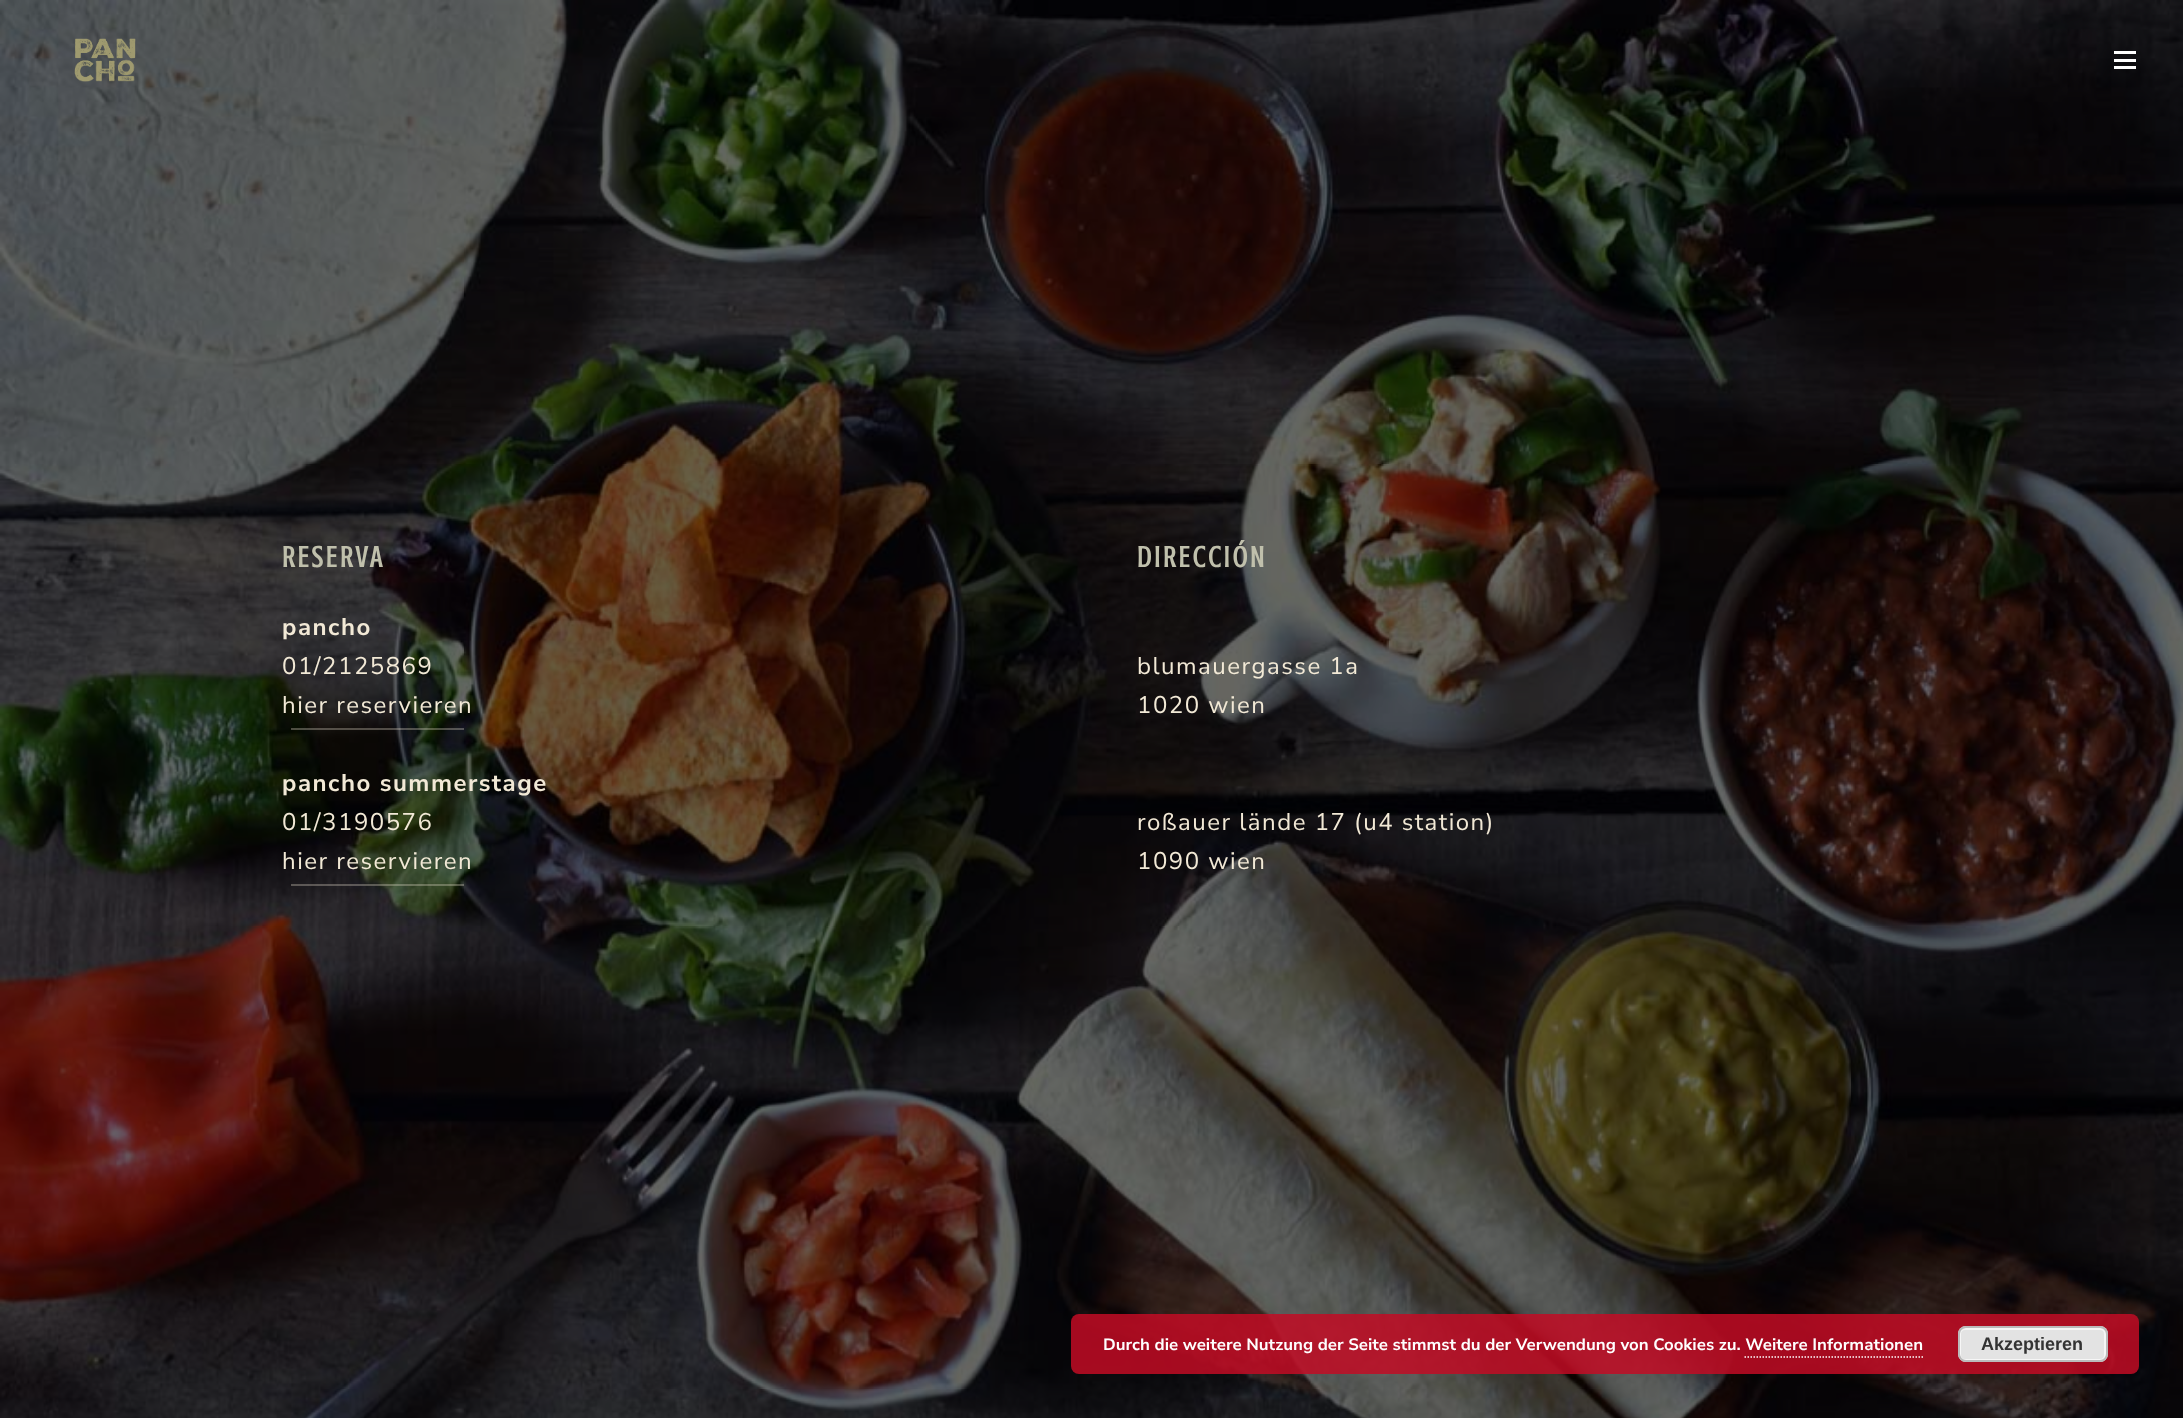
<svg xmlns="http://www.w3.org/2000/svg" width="2183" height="1418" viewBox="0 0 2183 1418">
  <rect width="100%" height="100%" fill="#ffffff"/>
  <image x="0" y="0" width="2183" height="1418" href="img2.png"/>
  <image x="74" y="38" width="62" height="44" href="img1.png"/>
  <rect x="2114" y="59" width="22" height="3" fill="#ffffff"/>
  <rect x="2114" y="51" width="22" height="3" fill="#ffffff"/>
  <rect x="2114" y="66" width="22" height="3" fill="#ffffff"/>
  <text x="282" y="567" font-family="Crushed" font-size="30" font-weight="bold" letter-spacing="3" fill="#c0c0ac">RESERVA</text>
  <text x="282" y="635" font-family="Nunito Sans" font-size="24" font-weight="bold" letter-spacing="1.5" fill="#f2e9d6">pancho</text>
  <text x="282" y="674" font-family="Nunito Sans" font-size="24" letter-spacing="1.5" fill="#f2e9d6">01/2125869</text>
  <text x="282" y="713" font-family="Nunito Sans" font-size="24" letter-spacing="1.5" fill="#f2e9d6">hier reservieren</text>
  <rect x="291" y="728" width="173" height="2" fill="#f2e9d6" fill-opacity="0.3"/>
  <text x="282" y="791" font-family="Nunito Sans" font-size="24" font-weight="bold" letter-spacing="1.5" fill="#f2e9d6">pancho summerstage</text>
  <text x="282" y="830" font-family="Nunito Sans" font-size="24" letter-spacing="1.5" fill="#f2e9d6">01/3190576</text>
  <text x="282" y="869" font-family="Nunito Sans" font-size="24" letter-spacing="1.5" fill="#f2e9d6">hier reservieren</text>
  <rect x="291" y="884" width="173" height="2" fill="#f2e9d6" fill-opacity="0.3"/>
  <text x="1137" y="567" font-family="Crushed" font-size="30" font-weight="bold" letter-spacing="3" fill="#c0c0ac">DIRECCIÓN</text>
  <text x="1137" y="674" font-family="Nunito Sans" font-size="24" letter-spacing="1.5" fill="#f2e9d6">blumauergasse 1a</text>
  <text x="1137" y="713" font-family="Nunito Sans" font-size="24" letter-spacing="1.5" fill="#f2e9d6">1020 wien</text>
  <text x="1137" y="830" font-family="Nunito Sans" font-size="24" letter-spacing="1.5" fill="#f2e9d6">roßauer lände 17 (u4 station)</text>
  <text x="1137" y="869" font-family="Nunito Sans" font-size="24" letter-spacing="1.5" fill="#f2e9d6">1090 wien</text>
  <rect x="1071" y="1314" width="1068" height="60" rx="8" fill="#c20c24" fill-opacity="0.85"/>
  <text x="1103" y="1350" font-family="'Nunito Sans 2'" font-size="16.5" font-weight="bold" fill="#ffffff">Durch die weitere Nutzung der Seite stimmst du der Verwendung von Cookies zu. Weitere Informationen</text>
  <rect x="1958" y="1326" width="150" height="36" rx="8" fill="#e3e3e3"/>
  <rect x="1960" y="1329" width="145" height="31" rx="5" fill="none" stroke="#f6f6f6" stroke-width="2"/>
  <rect x="1959" y="1327" width="148" height="34" rx="7" fill="none" stroke="#bbbbbb" stroke-width="2"/>
  <text x="1981" y="1350" font-family="Liberation Sans" font-size="18" font-weight="bold" fill="#333333">Akzeptieren</text>
  <path d="M1744.5 1357H1923" fill="none" stroke="#ffffff" stroke-width="1.5" stroke-dasharray="1.5 1.5"/>
</svg>
